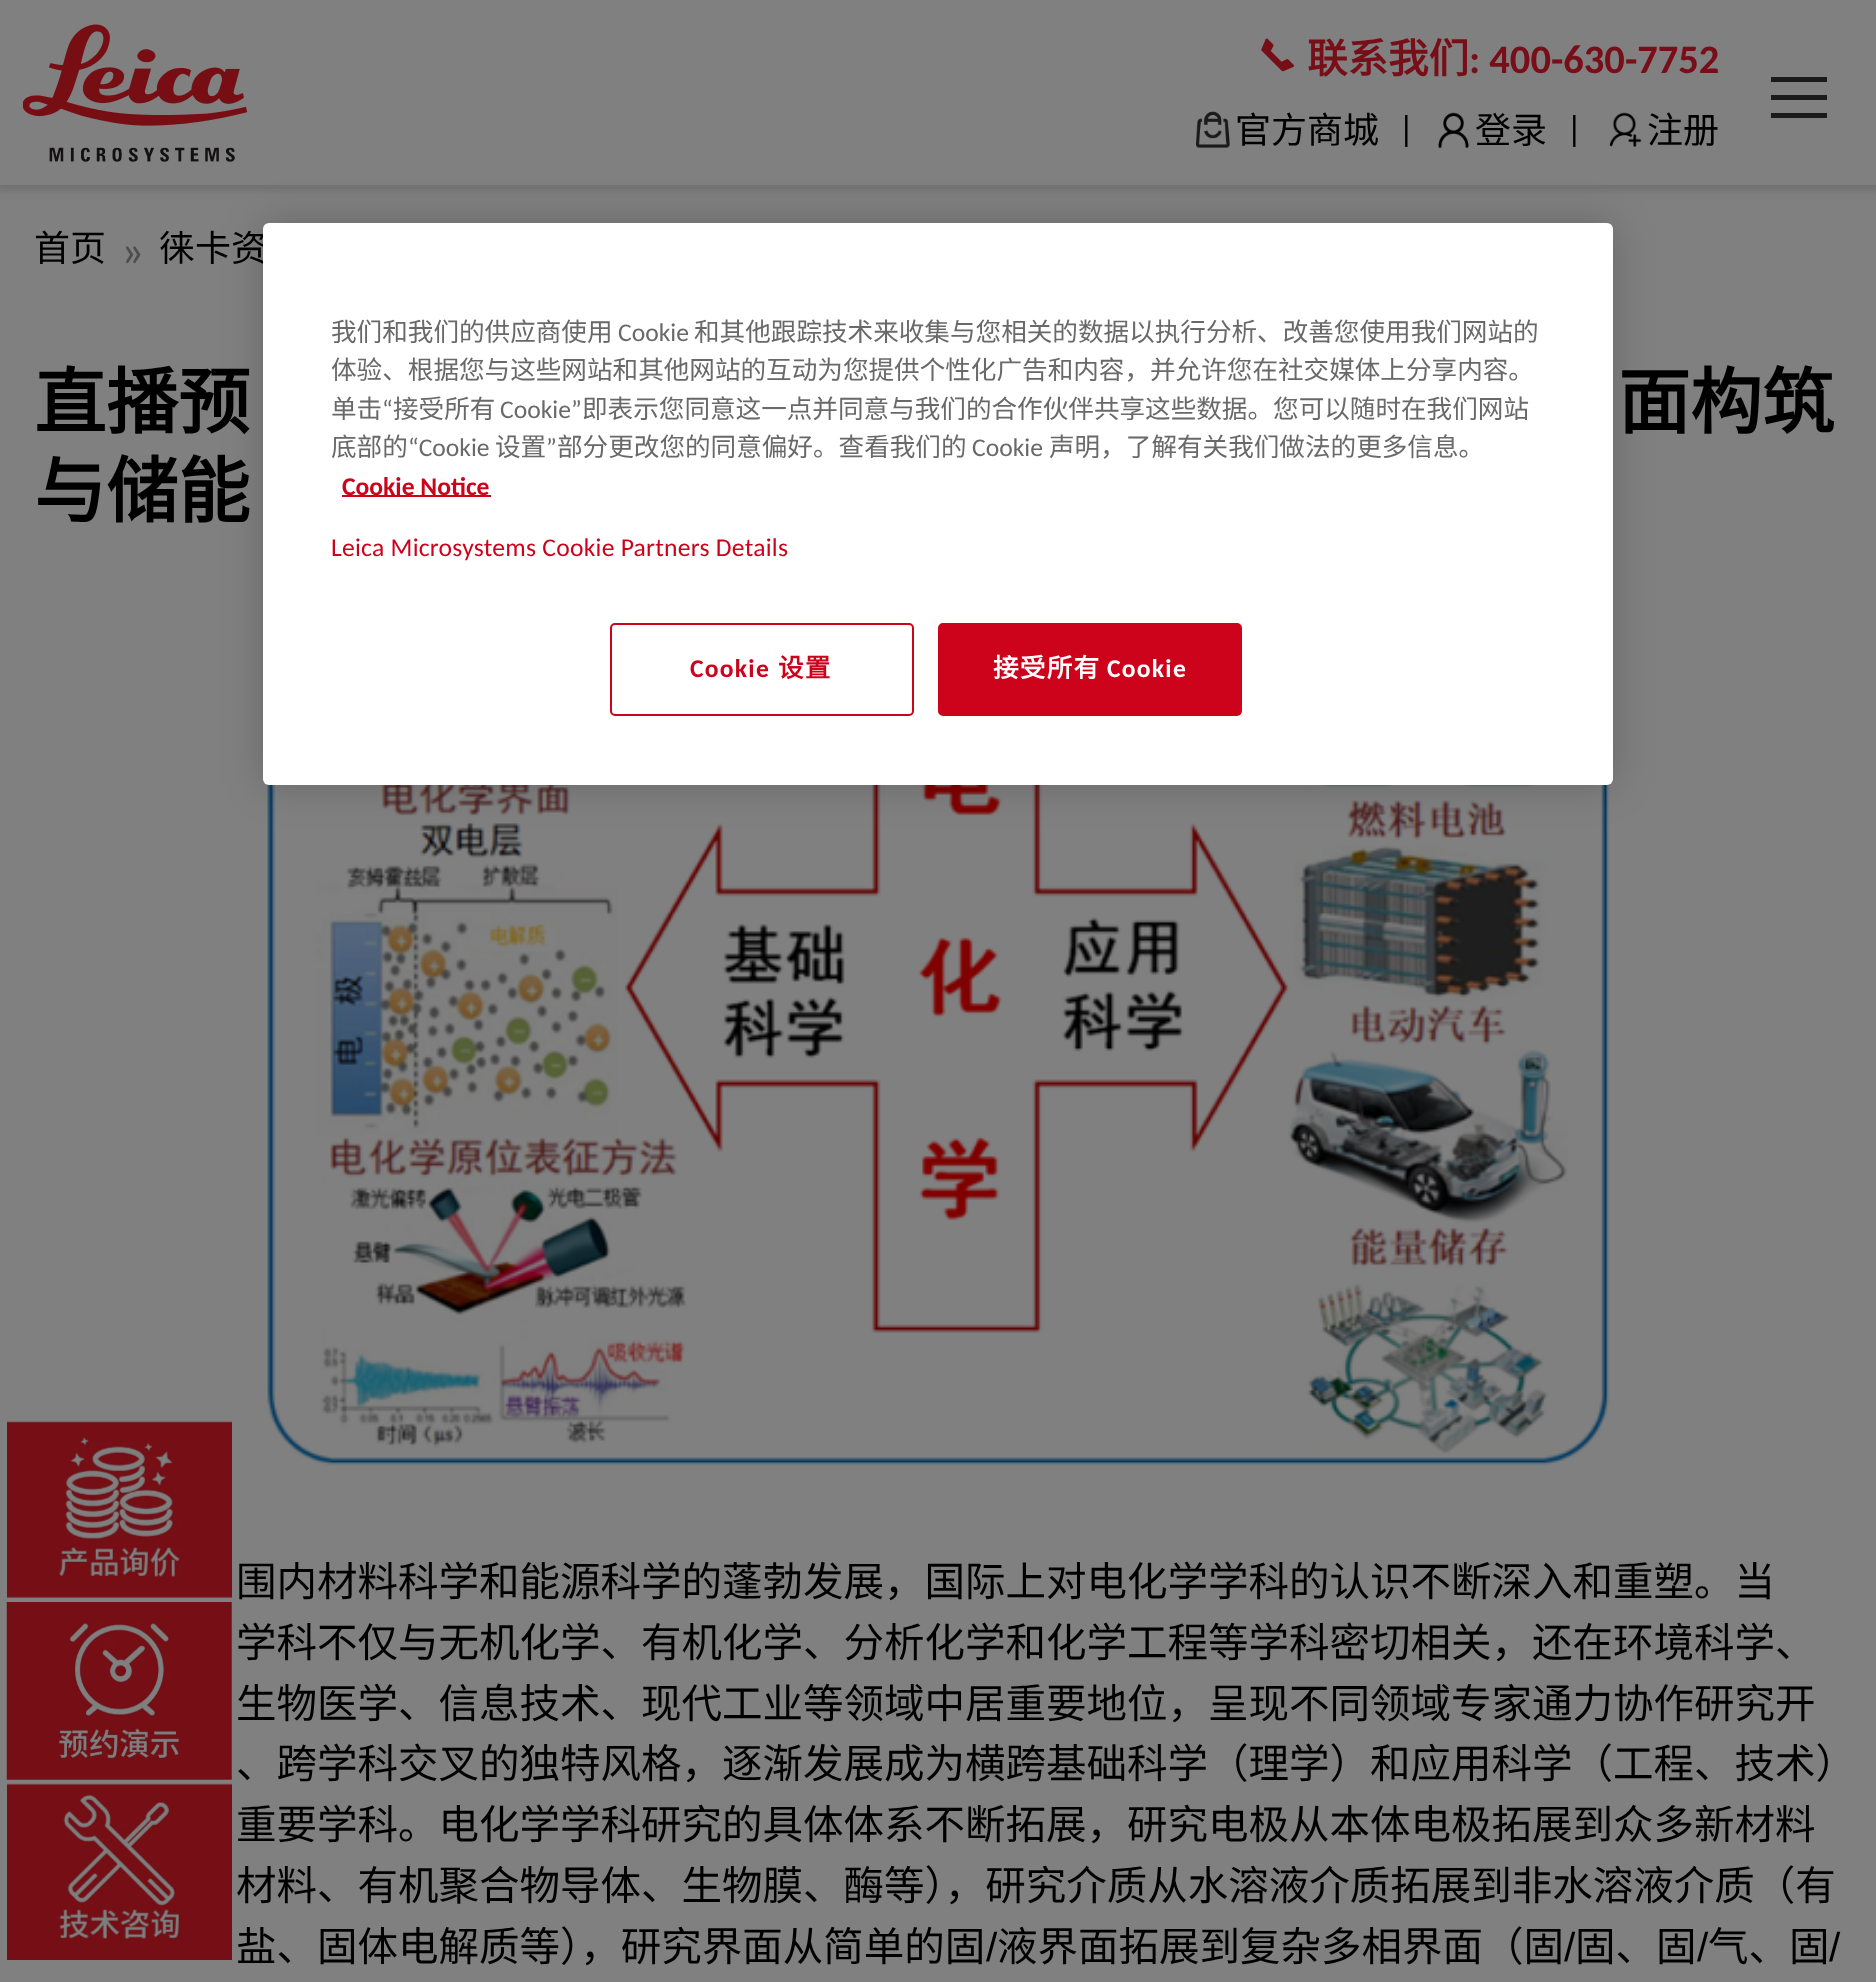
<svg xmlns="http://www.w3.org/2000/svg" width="1876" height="1982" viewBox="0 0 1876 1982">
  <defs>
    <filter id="blur1" x="-50%" y="-200%" width="200%" height="500%"><feGaussianBlur stdDeviation="4.5"/></filter>
    <filter id="blur2" x="-50%" y="-200%" width="200%" height="500%"><feGaussianBlur stdDeviation="20"/></filter>
  </defs>
  <rect width="100%" height="100%" fill="#808080"/>
  <rect x="-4" y="-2" width="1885" height="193" fill="#6f6f6f" filter="url(#blur1)"/>
  <rect x="0" y="0" width="1876" height="185" fill="#808080"/>
  <image x="23" y="24" width="225" height="138" href="img1.png"/>
  <image x="1261" y="38" width="33" height="34" href="img2.png"/>
  <text x="1307" y="73" font-family="Noto Sans CJK SC" font-size="40.5" font-weight="bold" fill="#770e18">联系我们</text>
  <text x="1469" y="73" font-family="Carlito" font-size="40.5" font-weight="bold" fill="#770e18">: 400-630-7752</text>
  <image x="1196" y="111" width="34" height="37" href="img3.png"/>
  <text x="1235" y="143" font-family="Noto Sans CJK SC" font-size="36" fill="#000000">官方商城</text>
  <text x="1398" y="141" font-family="Carlito" font-size="36" fill="#000000">|</text>
  <image x="1438" y="112" width="31" height="37" href="img4.png"/>
  <text x="1475" y="143" font-family="Noto Sans CJK SC" font-size="36" fill="#000000">登录</text>
  <text x="1566" y="141" font-family="Carlito" font-size="36" fill="#000000">|</text>
  <image x="1609" y="112" width="33" height="35" href="img5.png"/>
  <text x="1647" y="143" font-family="Noto Sans CJK SC" font-size="36" fill="#000000">注册</text>
  <rect x="1771" y="77" width="56" height="5" fill="#1a1a1a"/>
  <rect x="1771" y="95" width="56" height="5" fill="#1a1a1a"/>
  <rect x="1771" y="113" width="56" height="5" fill="#1a1a1a"/>
  <text x="34" y="261" font-family="Noto Sans CJK SC" font-size="36" fill="#000000">首页</text>
  <text x="121" y="266" font-family="Carlito" font-size="45" fill="#4d4d4d">»</text>
  <text x="159" y="261" font-family="Noto Sans CJK SC" font-size="36" fill="#000000">徕卡资</text>
  <text x="34" y="428" font-family="Noto Sans CJK SC" font-size="72" font-weight="bold" fill="#000000">直播预</text>
  <text x="1618" y="428" font-family="Noto Sans CJK SC" font-size="72" font-weight="bold" fill="#000000">面构筑</text>
  <text x="34" y="517" font-family="Noto Sans CJK SC" font-size="72" font-weight="bold" fill="#000000">与储能</text>
  <image x="267" y="784" width="1343" height="682" href="img6.png"/>
  <text x="236" y="1596" font-family="Noto Sans CJK SC" font-size="40.5" fill="#000000">围内材料科学和能源科学的蓬勃发展，国际上对电化学学科的认识不断深入和重塑。当</text>
  <text x="236" y="1657" font-family="Noto Sans CJK SC" font-size="40.5" fill="#000000">学科不仅与无机化学、有机化学、分析化学和化学工程等学科密切相关，还在环境科学、</text>
  <text x="236" y="1718" font-family="Noto Sans CJK SC" font-size="40.5" fill="#000000">生物医学、信息技术、现代工业等领域中居重要地位，呈现不同领域专家通力协作研究开</text>
  <text x="236" y="1778" font-family="Noto Sans CJK SC" font-size="40.5" fill="#000000">、跨学科交叉的独特风格，逐渐发展成为横跨基础科学（理学）和应用科学（工程、技术）</text>
  <text x="236" y="1839" font-family="Noto Sans CJK SC" font-size="40.5" fill="#000000">重要学科。电化学学科研究的具体体系不断拓展，研究电极从本体电极拓展到众多新材料</text>
  <text x="236" y="1900" font-family="Noto Sans CJK SC" font-size="40.5" fill="#000000">材料、有机聚合物导体、生物膜、酶等），研究介质从水溶液介质拓展到非水溶液介质（有</text>
  <text x="236" y="1961" font-family="Noto Sans CJK SC" font-size="40.5" fill="#000000">盐、固体电解质等），研究界面从简单的固</text>
  <text x="986" y="1961" font-family="Liberation Sans" font-size="40.5" fill="#000000">/</text>
  <text x="997" y="1961" font-family="Noto Sans CJK SC" font-size="40.5" fill="#000000">液界面拓展到复杂多相界面（固</text>
  <text x="1564" y="1961" font-family="Liberation Sans" font-size="40.5" fill="#000000">/</text>
  <text x="1575" y="1961" font-family="Noto Sans CJK SC" font-size="40.5" fill="#000000">固、固</text>
  <text x="1697" y="1961" font-family="Liberation Sans" font-size="40.5" fill="#000000">/</text>
  <text x="1708" y="1961" font-family="Noto Sans CJK SC" font-size="40.5" fill="#000000">气、固</text>
  <text x="1829" y="1961" font-family="Liberation Sans" font-size="40.5" fill="#000000">/</text>
  <rect x="263" y="223" width="1350" height="562" rx="6" fill="#000000" fill-opacity="0.2" filter="url(#blur2)"/>
  <rect x="263" y="223" width="1350" height="562" rx="6" fill="#ffffff"/>
  <text x="331" y="341" font-family="Noto Sans CJK SC" font-size="25.6" fill="#696969">我们和我们的供应商使用</text>
  <text x="618" y="341" font-family="Carlito" font-size="25.6" fill="#696969">Cookie</text>
  <text x="694" y="341" font-family="Noto Sans CJK SC" font-size="25.6" fill="#696969">和其他跟踪技术来收集与您相关的数据以执行分析、改善您使用我们网站的</text>
  <text x="331" y="379" font-family="Noto Sans CJK SC" font-size="25.6" fill="#696969">体验、根据您与这些网站和其他网站的互动为您提供个性化广告和内容，并允许您在社交媒体上分享内容。</text>
  <text x="331" y="418" font-family="Noto Sans CJK SC" font-size="25.6" fill="#696969">单击</text>
  <text x="382" y="418" font-family="Carlito" font-size="25.6" fill="#696969">“</text>
  <text x="393" y="418" font-family="Noto Sans CJK SC" font-size="25.6" fill="#696969">接受所有</text>
  <text x="500" y="418" font-family="Carlito" font-size="25.6" fill="#696969">Cookie”</text>
  <text x="582" y="418" font-family="Noto Sans CJK SC" font-size="25.6" fill="#696969">即表示您同意这一点并同意与我们的合作伙伴共享这些数据。您可以随时在我们网站</text>
  <text x="331" y="456" font-family="Noto Sans CJK SC" font-size="25.6" fill="#696969">底部的</text>
  <text x="408" y="456" font-family="Carlito" font-size="25.6" fill="#696969">“Cookie</text>
  <text x="495" y="456" font-family="Noto Sans CJK SC" font-size="25.6" fill="#696969">设置</text>
  <text x="546" y="456" font-family="Carlito" font-size="25.6" fill="#696969">”</text>
  <text x="557" y="456" font-family="Noto Sans CJK SC" font-size="25.6" fill="#696969">部分更改您的同意偏好。查看我们的</text>
  <text x="972" y="456" font-family="Carlito" font-size="25.6" fill="#696969">Cookie</text>
  <text x="1049" y="456" font-family="Noto Sans CJK SC" font-size="25.6" fill="#696969">声明，了解有关我们做法的更多信息。</text>
  <rect x="342" y="495" width="149" height="2" fill="#cd031c"/>
  <text x="342" y="495" font-family="Carlito" font-size="25.6" font-weight="bold" fill="#cd031c">Cookie Notice</text>
  <text x="331" y="556" font-family="Carlito" font-size="25.6" letter-spacing="0.25" fill="#cd031c">Leica Microsystems Cookie Partners Details</text>
  <rect x="611" y="624" width="302" height="91" rx="4" fill="none" stroke="#cd031c" stroke-width="2"/>
  <text x="690" y="677" font-family="Carlito" font-size="25.6" font-weight="bold" letter-spacing="1.25" fill="#cd031c">Cookie</text>
  <text x="778" y="677" font-family="Noto Sans CJK SC" font-size="25.6" font-weight="bold" letter-spacing="1.25" fill="#cd031c">设置</text>
  <rect x="939" y="624" width="302" height="91" rx="4" fill="#cd031c" stroke="#cd031c" stroke-width="2"/>
  <text x="993" y="677" font-family="Noto Sans CJK SC" font-size="25.6" font-weight="bold" letter-spacing="1.25" fill="#ffffff">接受所有</text>
  <text x="1107" y="677" font-family="Carlito" font-size="25.6" font-weight="bold" letter-spacing="1.25" fill="#ffffff">Cookie</text>
  <image x="7" y="1421" width="225" height="177" href="img7.png"/>
  <image x="6" y="1602" width="226" height="178" href="img8.png"/>
  <image x="7" y="1783" width="225" height="177" href="img9.png"/>
</svg>
